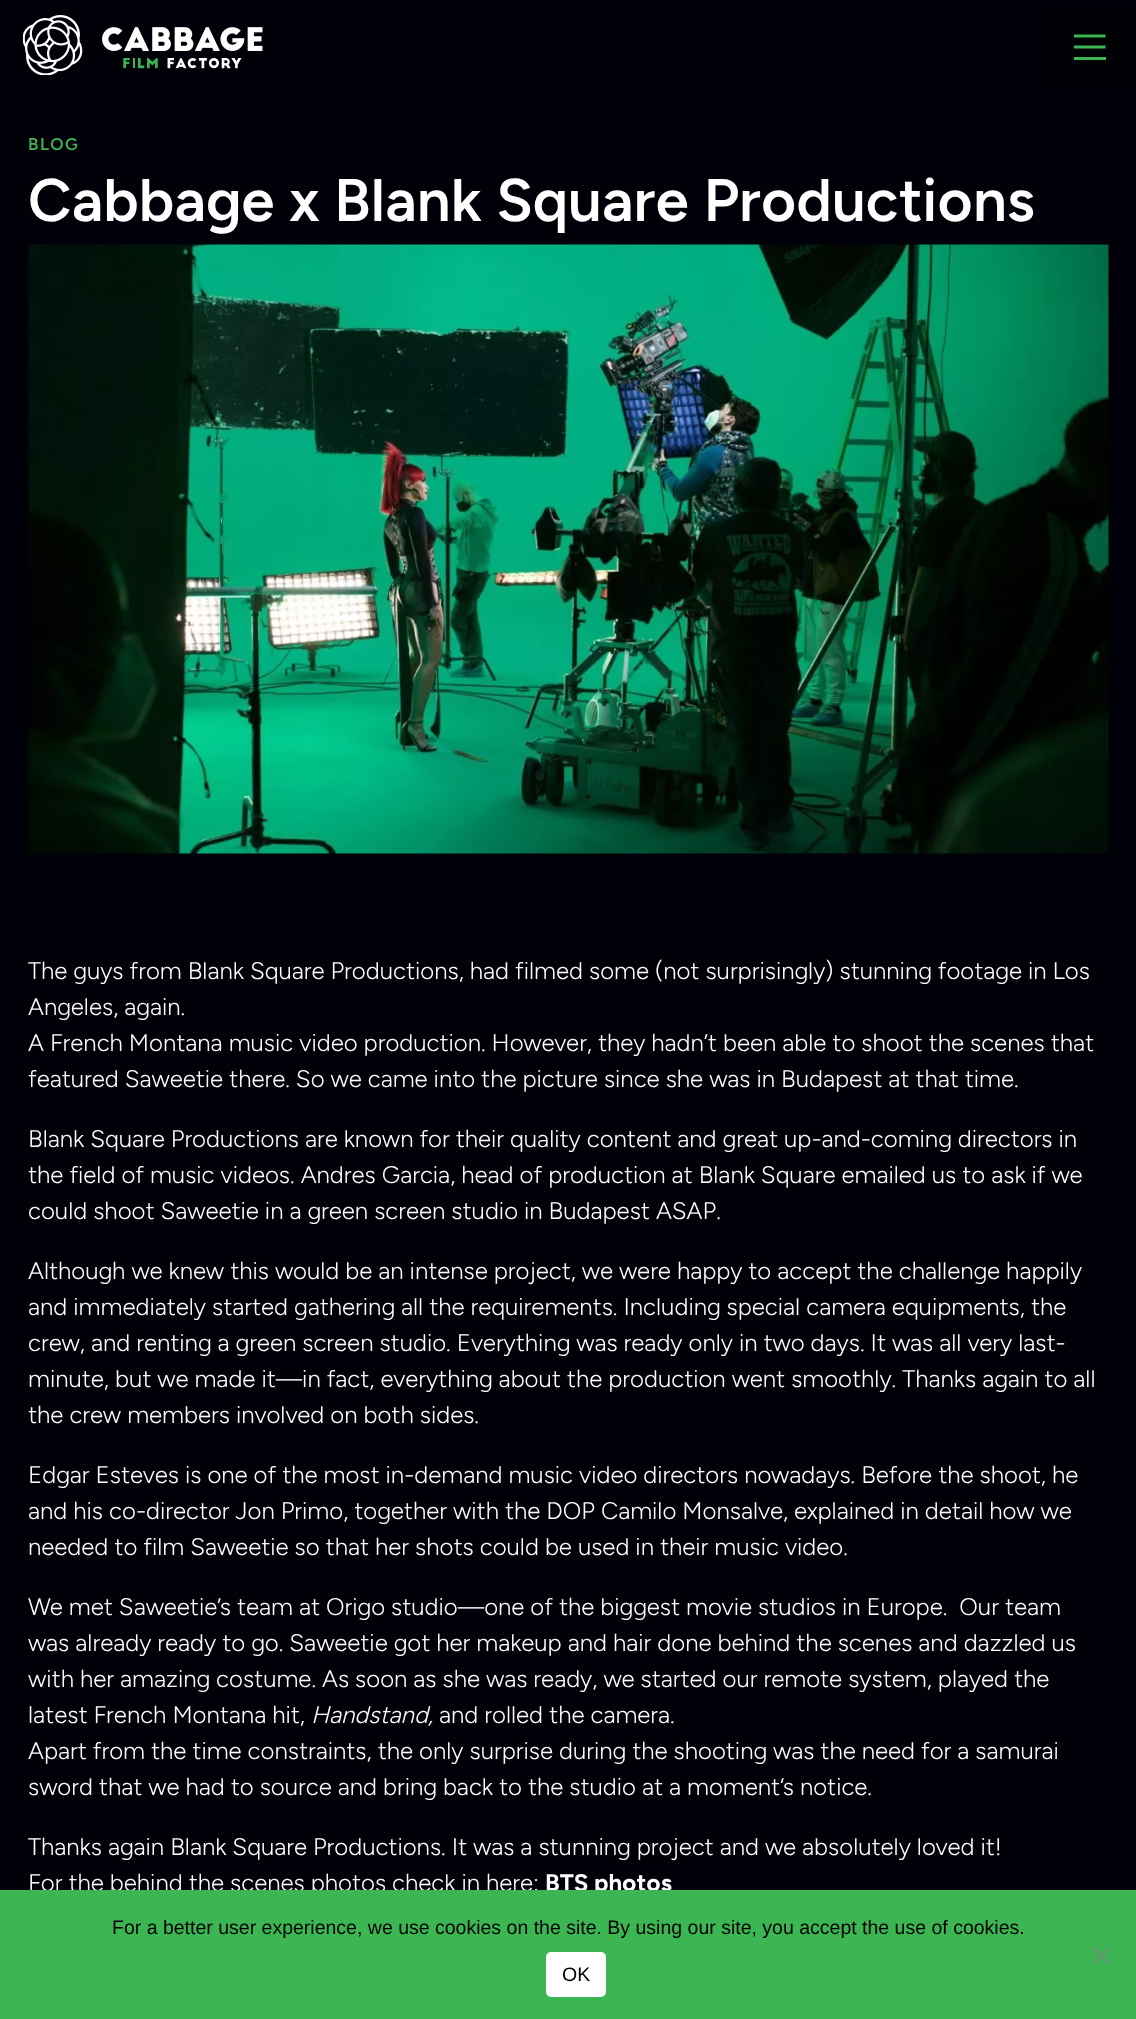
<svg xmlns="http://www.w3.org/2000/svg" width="1136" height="2019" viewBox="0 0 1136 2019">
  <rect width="100%" height="100%" fill="#000108"/>
  <image x="23" y="15" width="240" height="60" href="img1.png"/>
  <rect x="1053" y="9" width="76" height="76" fill="#000104" stroke="#000102" stroke-width="2"/>
  <path d="M1074 36H1105.5M1074 47H1105.5" fill="none" stroke="#3cb553" stroke-width="3.1"/>
  <rect x="1074" y="57" width="32" height="3" fill="#3cb553"/>
  <text x="28" y="150" font-family="Figtree" font-size="17" font-weight="600" letter-spacing="1.5" fill="#3cb553">BLOG</text>
  <text x="28" y="221" font-family="Figtree" font-size="60" font-weight="600" fill="#ffffff">Cabbage x Blank Square Productions</text>
  <image x="28" y="244" width="1081" height="610" href="img2.png"/>
  <text x="28" y="979" font-family="Figtree" font-size="24" font-weight="300" fill="#ffffff">The guys from Blank Square Productions, had filmed some (not surprisingly) stunning footage in Los</text>
  <text x="28" y="1015" font-family="Figtree" font-size="24" font-weight="300" fill="#ffffff">Angeles, again.</text>
  <text x="28" y="1051" font-family="Figtree" font-size="24" font-weight="300" fill="#ffffff">A French Montana music video production. However, they hadn’t been able to shoot the scenes that</text>
  <text x="28" y="1087" font-family="Figtree" font-size="24" font-weight="300" fill="#ffffff">featured Saweetie there. So we came into the picture since she was in Budapest at that time.</text>
  <text x="28" y="1147" font-family="Figtree" font-size="24" font-weight="300" fill="#ffffff">Blank Square Productions are known for their quality content and great up-and-coming directors in</text>
  <text x="28" y="1183" font-family="Figtree" font-size="24" font-weight="300" fill="#ffffff">the field of music videos. Andres Garcia, head of production at Blank Square emailed us to ask if we</text>
  <text x="28" y="1219" font-family="Figtree" font-size="24" font-weight="300" fill="#ffffff">could shoot Saweetie in a green screen studio in Budapest ASAP.</text>
  <text x="28" y="1279" font-family="Figtree" font-size="24" font-weight="300" fill="#ffffff">Although we knew this would be an intense project, we were happy to accept the challenge happily</text>
  <text x="28" y="1315" font-family="Figtree" font-size="24" font-weight="300" fill="#ffffff">and immediately started gathering all the requirements. Including special camera equipments, the</text>
  <text x="28" y="1351" font-family="Figtree" font-size="24" font-weight="300" fill="#ffffff">crew, and renting a green screen studio. Everything was ready only in two days. It was all very last-</text>
  <text x="28" y="1387" font-family="Figtree" font-size="24" font-weight="300" fill="#ffffff">minute, but we made it—in fact, everything about the production went smoothly. Thanks again to all</text>
  <text x="28" y="1423" font-family="Figtree" font-size="24" font-weight="300" fill="#ffffff">the crew members involved on both sides.</text>
  <text x="28" y="1483" font-family="Figtree" font-size="24" font-weight="300" fill="#ffffff">Edgar Esteves is one of the most in-demand music video directors nowadays. Before the shoot, he</text>
  <text x="28" y="1519" font-family="Figtree" font-size="24" font-weight="300" fill="#ffffff">and his co-director Jon Primo, together with the DOP Camilo Monsalve, explained in detail how we</text>
  <text x="28" y="1555" font-family="Figtree" font-size="24" font-weight="300" fill="#ffffff">needed to film Saweetie so that her shots could be used in their music video.</text>
  <text x="28" y="1615" font-family="Figtree" font-size="24" font-weight="300" fill="#ffffff" xml:space="preserve">We met Saweetie’s team at Origo studio—one of the biggest movie studios in Europe.  Our team</text>
  <text x="28" y="1651" font-family="Figtree" font-size="24" font-weight="300" fill="#ffffff">was already ready to go. Saweetie got her makeup and hair done behind the scenes and dazzled us</text>
  <text x="28" y="1687" font-family="Figtree" font-size="24" font-weight="300" fill="#ffffff">with her amazing costume. As soon as she was ready, we started our remote system, played the</text>
  <text x="28" y="1723" font-family="Figtree" font-size="24" font-weight="300" fill="#ffffff">latest French Montana hit,</text>
  <text x="311" y="1723" font-family="Figtree" font-size="24" font-weight="300" font-style="italic" fill="#ffffff">Handstand,</text>
  <text x="439" y="1723" font-family="Figtree" font-size="24" font-weight="300" fill="#ffffff">and rolled the camera.</text>
  <text x="28" y="1759" font-family="Figtree" font-size="24" font-weight="300" fill="#ffffff">Apart from the time constraints, the only surprise during the shooting was the need for a samurai</text>
  <text x="28" y="1795" font-family="Figtree" font-size="24" font-weight="300" fill="#ffffff">sword that we had to source and bring back to the studio at a moment’s notice.</text>
  <text x="28" y="1855" font-family="Figtree" font-size="24" font-weight="300" fill="#ffffff">Thanks again Blank Square Productions. It was a stunning project and we absolutely loved it!</text>
  <text x="28" y="1891" font-family="Figtree" font-size="24" font-weight="300" fill="#ffffff">For the behind the scenes photos check in here:</text>
  <text x="545" y="1891" font-family="Figtree" font-size="24" font-weight="bold" fill="#ffffff">BTS photos</text>
  <rect x="0" y="1890" width="1136" height="129" fill="#3cb553"/>
  <text x="112" y="1934" font-family="Liberation Sans" font-size="19.5" fill="#000000">For a better user experience, we use cookies on the site. By using our site, you accept the use of cookies.</text>
  <path d="M1108 1946L1110 1948.5L1094 1964.5L1092 1962Z" fill="#5e9b6a"/>
  <path d="M1092 1948.5L1094 1946L1110 1962L1108 1964.5Z" fill="#5e9b6a"/>
  <rect x="546" y="1952" width="60" height="45" rx="5" fill="#ffffff"/>
  <text x="562" y="1981" font-family="Liberation Sans" font-size="19.5" fill="#000000">OK</text>
</svg>
